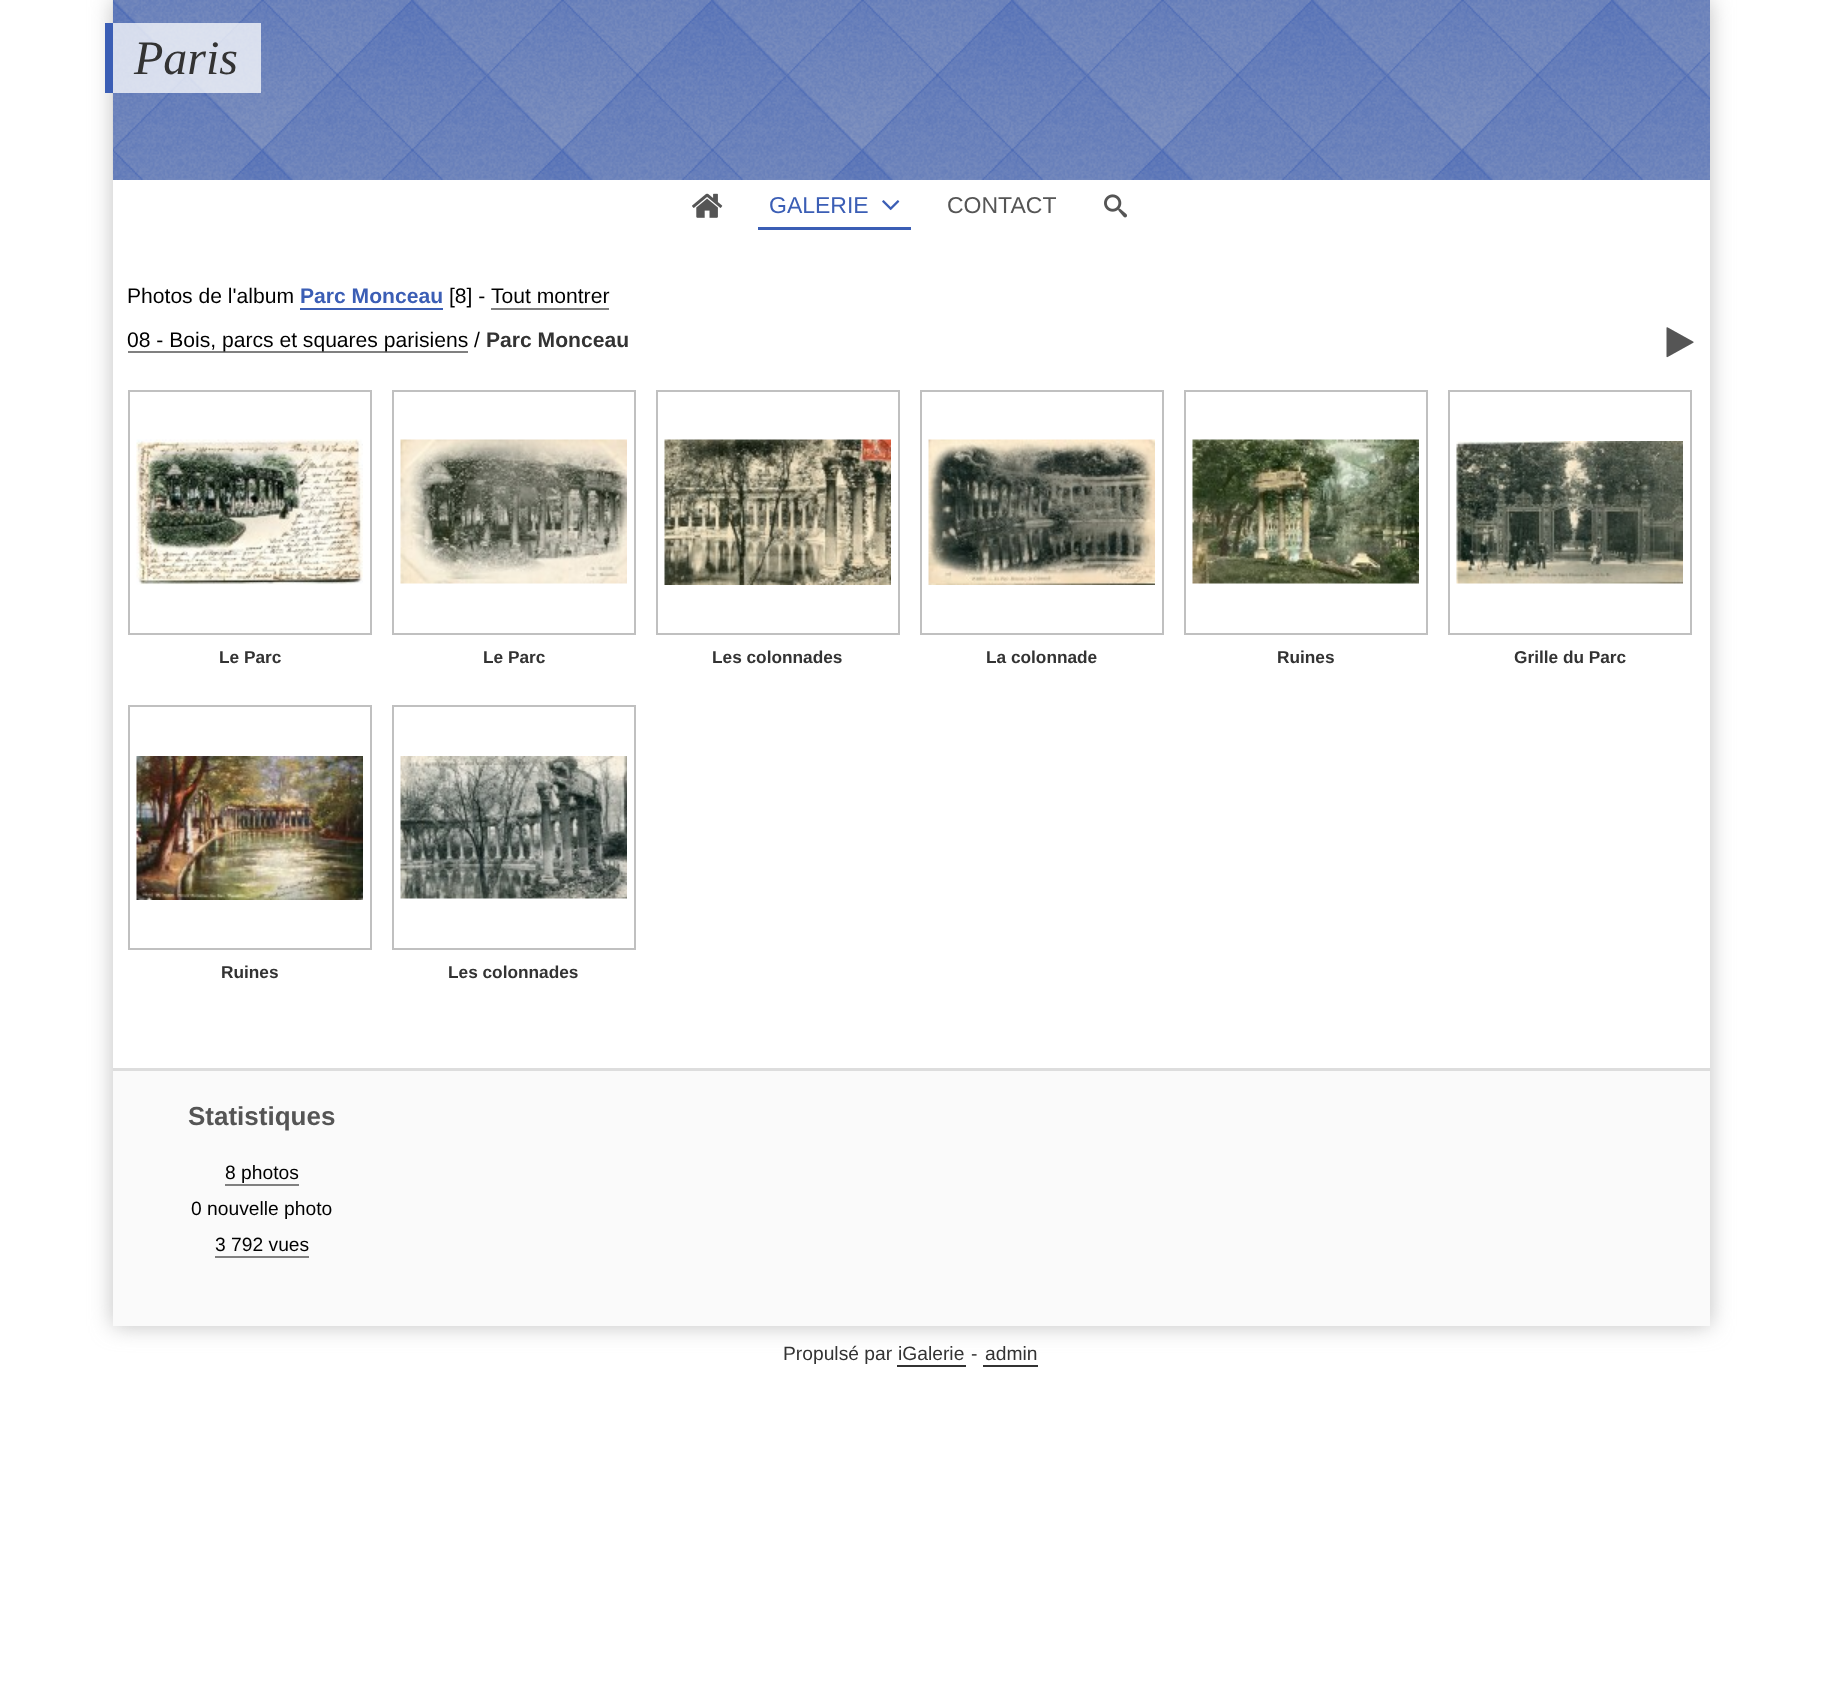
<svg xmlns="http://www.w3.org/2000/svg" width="1821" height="1698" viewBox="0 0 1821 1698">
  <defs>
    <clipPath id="clip1"><path d="M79 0H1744V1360H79ZM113 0H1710V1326H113Z" clip-rule="evenodd"/></clipPath>
    <filter id="blur1" x="-50%" y="-200%" width="200%" height="500%"><feGaussianBlur stdDeviation="11"/></filter>
  </defs>
  <rect width="100%" height="100%" fill="#ffffff"/>
  <g clip-path="url(#clip1)">
    <rect x="113" y="0" width="1597" height="1326" fill="#c0c0c0" filter="url(#blur1)"/>
  </g>
  <rect x="113" y="0" width="1597" height="180" fill="#3b5eb5"/>
  <image x="112" y="0" width="1598" height="180" href="img1.png"/>
  <rect x="113" y="23" width="148" height="70" fill="#ffffff" fill-opacity="0.75"/>
  <rect x="105" y="23" width="8" height="70" fill="#3b5eb5"/>
  <text x="134" y="74" font-family="Liberation Serif" font-size="48" font-style="italic" fill="#333333">Paris</text>
  <image x="692" y="193" width="31" height="25" href="img2.png"/>
  <rect x="758" y="227" width="153" height="3" fill="#3b5eb5"/>
  <text x="769" y="213" font-family="Liberation Sans" font-size="23" fill="#3b5eb5">GALERIE</text>
  <image x="882" y="200" width="18" height="11" href="img3.png"/>
  <text x="947" y="213" font-family="Liberation Sans" font-size="23" fill="#555555">CONTACT</text>
  <image x="1104" y="194" width="23" height="24" href="img4.png"/>
  <text x="127" y="303" font-family="Liberation Sans" font-size="21.1" fill="#000000">Photos de l'album</text>
  <text x="300" y="303" font-family="Liberation Sans" font-size="21.1" font-weight="bold" fill="#3b5eb5">Parc Monceau</text>
  <rect x="300" y="308" width="143" height="2" fill="#3b5eb5"/>
  <text x="449" y="303" font-family="Liberation Sans" font-size="21.1" fill="#000000">[8] -</text>
  <text x="491" y="303" font-family="Liberation Sans" font-size="21.1" fill="#000000">Tout montrer</text>
  <rect x="491" y="308" width="118" height="2" fill="#808080"/>
  <rect x="128" y="351" width="340" height="2" fill="#808080"/>
  <text x="127" y="347" font-family="Liberation Sans" font-size="21.1" fill="#000000">08 - Bois, parcs et squares parisiens /</text>
  <text x="486" y="347" font-family="Liberation Sans" font-size="21.1" font-weight="bold" fill="#333333">Parc Monceau</text>
  <image x="1666" y="327" width="28" height="31" href="img5.png"/>
  <rect x="129" y="391" width="242" height="243" fill="none" stroke="#c0c0c0" stroke-width="2"/>
  <image x="136" y="439" width="227" height="146" href="img6.png"/>
  <text x="219" y="663" font-family="Liberation Sans" font-size="17.25" font-weight="bold" fill="#333333">Le Parc</text>
  <rect x="393" y="391" width="242" height="243" fill="none" stroke="#c0c0c0" stroke-width="2"/>
  <image x="400" y="439" width="227" height="145" href="img7.png"/>
  <text x="483" y="663" font-family="Liberation Sans" font-size="17.25" font-weight="bold" fill="#333333">Le Parc</text>
  <rect x="657" y="391" width="242" height="243" fill="none" stroke="#c0c0c0" stroke-width="2"/>
  <image x="664" y="439" width="227" height="146" href="img8.png"/>
  <text x="712" y="663" font-family="Liberation Sans" font-size="17.25" font-weight="bold" fill="#333333">Les colonnades</text>
  <rect x="921" y="391" width="242" height="243" fill="none" stroke="#c0c0c0" stroke-width="2"/>
  <image x="928" y="439" width="227" height="146" href="img9.png"/>
  <text x="986" y="663" font-family="Liberation Sans" font-size="17.25" font-weight="bold" fill="#333333">La colonnade</text>
  <rect x="1185" y="391" width="242" height="243" fill="none" stroke="#c0c0c0" stroke-width="2"/>
  <image x="1192" y="439" width="227" height="145" href="img10.png"/>
  <text x="1277" y="663" font-family="Liberation Sans" font-size="17.25" font-weight="bold" fill="#333333">Ruines</text>
  <rect x="1449" y="391" width="242" height="243" fill="none" stroke="#c0c0c0" stroke-width="2"/>
  <image x="1456" y="441" width="227" height="143" href="img11.png"/>
  <text x="1514" y="663" font-family="Liberation Sans" font-size="17.25" font-weight="bold" fill="#333333">Grille du Parc</text>
  <rect x="129" y="706" width="242" height="243" fill="none" stroke="#c0c0c0" stroke-width="2"/>
  <image x="136" y="756" width="227" height="144" href="img12.png"/>
  <text x="221" y="978" font-family="Liberation Sans" font-size="17.25" font-weight="bold" fill="#333333">Ruines</text>
  <rect x="393" y="706" width="242" height="243" fill="none" stroke="#c0c0c0" stroke-width="2"/>
  <image x="400" y="756" width="227" height="143" href="img13.png"/>
  <text x="448" y="978" font-family="Liberation Sans" font-size="17.25" font-weight="bold" fill="#333333">Les colonnades</text>
  <rect x="113" y="1071" width="1597" height="255" fill="#fafafa"/>
  <rect x="113" y="1068" width="1597" height="3" fill="#dddddd"/>
  <text x="188" y="1125" font-family="Liberation Sans" font-size="26" font-weight="bold" fill="#555555">Statistiques</text>
  <text x="225" y="1179" font-family="Liberation Sans" font-size="19.25" fill="#000000">8 photos</text>
  <rect x="225" y="1184" width="74" height="2" fill="#808080"/>
  <text x="191" y="1215" font-family="Liberation Sans" font-size="19.25" fill="#000000">0 nouvelle photo</text>
  <text x="215" y="1251" font-family="Liberation Sans" font-size="19.25" fill="#000000">3 792 vues</text>
  <rect x="215" y="1256" width="94" height="2" fill="#808080"/>
  <text x="783" y="1360" font-family="Liberation Sans" font-size="19.25" fill="#333333">Propulsé par</text>
  <text x="898" y="1360" font-family="Liberation Sans" font-size="19.25" fill="#333333">iGalerie</text>
  <rect x="897" y="1365" width="69" height="2" fill="#333333"/>
  <text x="971" y="1360" font-family="Liberation Sans" font-size="19.25" fill="#333333">-</text>
  <text x="985" y="1360" font-family="Liberation Sans" font-size="19.25" fill="#333333">admin</text>
  <rect x="983" y="1365" width="55" height="2" fill="#333333"/>
</svg>
